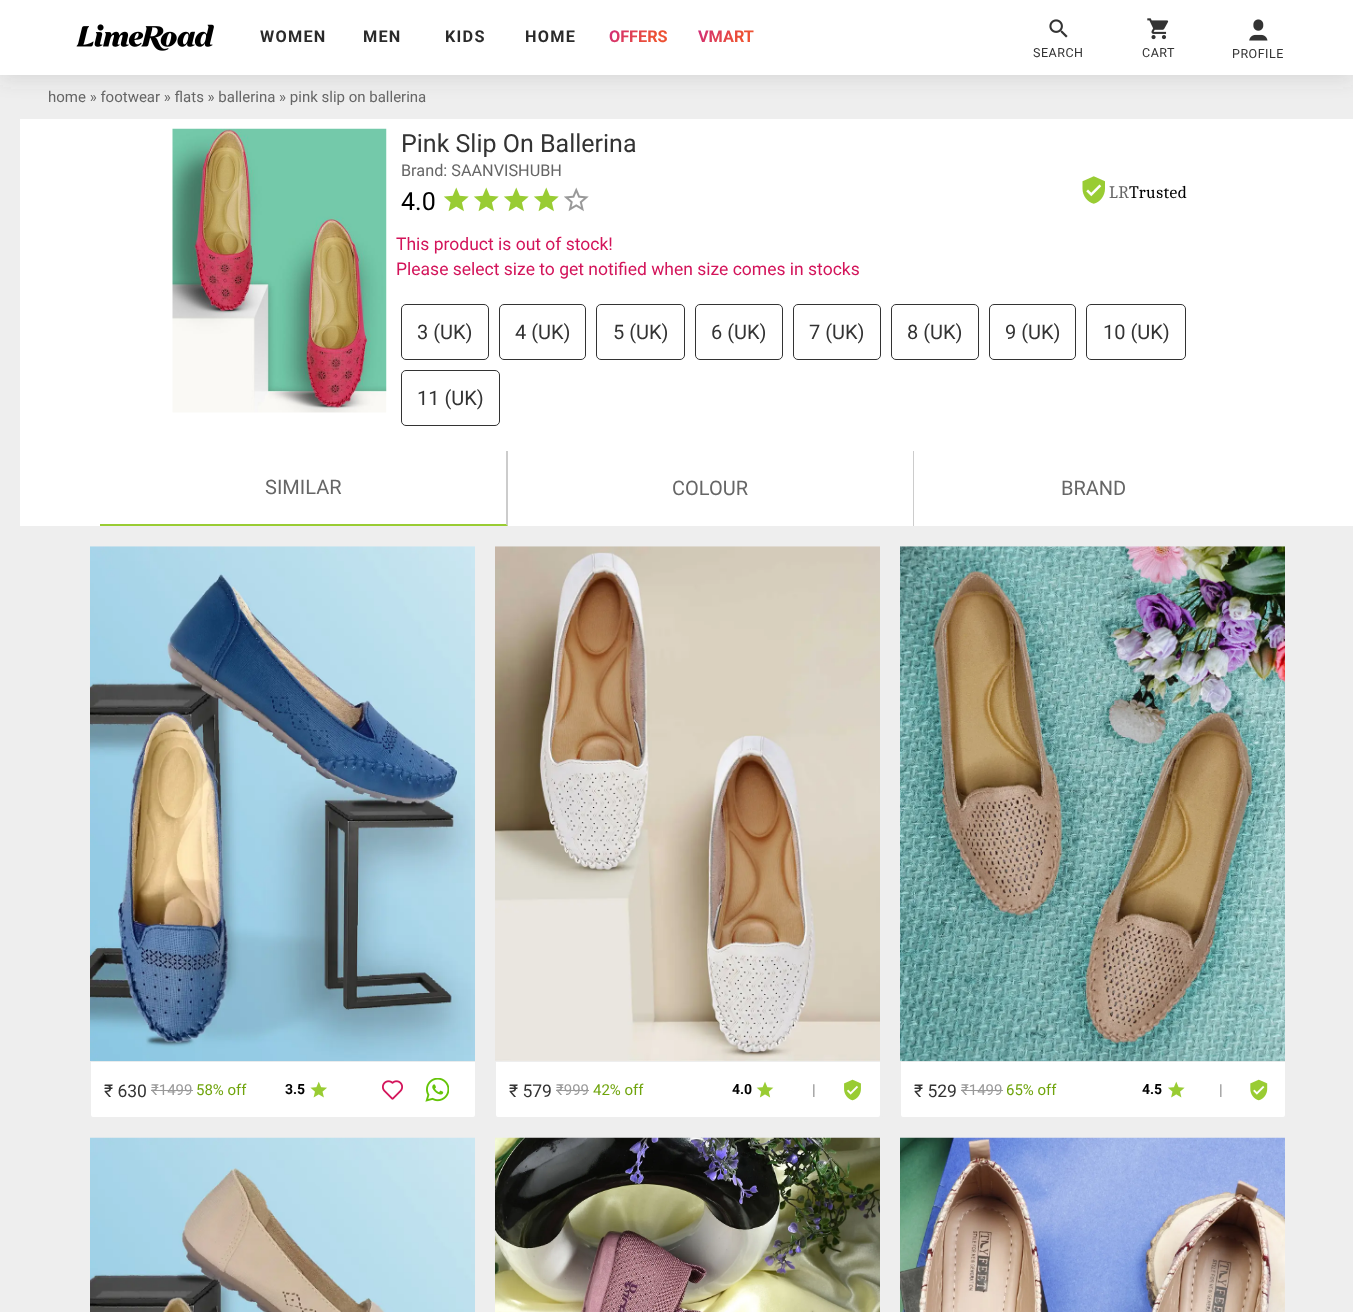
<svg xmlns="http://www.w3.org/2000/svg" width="1353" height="1312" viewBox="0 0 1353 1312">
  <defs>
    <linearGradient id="g1" gradientUnits="userSpaceOnUse" x1="611" y1="19" x2="664" y2="53"><stop offset="0" stop-color="#ce297e"/><stop offset="0.73" stop-color="#ed5133"/></linearGradient>
    <linearGradient id="g2" gradientUnits="userSpaceOnUse" x1="700" y1="20" x2="750" y2="52"><stop offset="0" stop-color="#ce297e"/><stop offset="0.73" stop-color="#ed5133"/></linearGradient>
    <filter id="blur1" x="-50%" y="-200%" width="200%" height="500%"><feGaussianBlur stdDeviation="10"/></filter>
  </defs>
  <rect width="100%" height="100%" fill="#eeeeee"/>
  <rect x="0" y="3" width="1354" height="75" fill="#555555" fill-opacity="0.16" filter="url(#blur1)"/>
  <rect x="0" y="0" width="1353" height="75" fill="#ffffff"/>
  <image x="76" y="24" width="138" height="27" href="img1.png"/>
  <text x="260" y="42" font-family="Roboto" font-size="16.25" font-weight="bold" letter-spacing="1.25" fill="#2a2a2a">WOMEN</text>
  <text x="363" y="42" font-family="Roboto" font-size="16.25" font-weight="bold" letter-spacing="1.25" fill="#2a2a2a">MEN</text>
  <text x="445" y="42" font-family="Roboto" font-size="16.25" font-weight="bold" letter-spacing="1.25" fill="#2a2a2a">KIDS</text>
  <text x="525" y="42" font-family="Roboto" font-size="16.25" font-weight="bold" letter-spacing="1.25" fill="#2a2a2a">HOME</text>
  <text x="609" y="42" font-family="Roboto" font-size="16.25" font-weight="bold" fill="url(#g1)">OFFERS</text>
  <text x="698" y="42" font-family="Roboto" font-size="16.25" font-weight="bold" fill="url(#g2)">VMART</text>
  <image x="1049" y="19" width="19" height="19" href="img2.png"/>
  <text x="1033" y="57" font-family="Roboto" font-size="12.5" letter-spacing="0.5" fill="#333333">SEARCH</text>
  <image x="1147" y="18" width="22" height="22" href="img3.png"/>
  <text x="1142" y="57" font-family="Roboto" font-size="12.5" letter-spacing="0.5" fill="#333333">CART</text>
  <image x="1249" y="19" width="19" height="22" href="img4.png"/>
  <text x="1232" y="58" font-family="Roboto" font-size="12.5" letter-spacing="0.5" fill="#333333">PROFILE</text>
  <text x="48" y="102" font-family="Roboto" font-size="15" fill="#666666">home » footwear » flats » ballerina » pink slip on ballerina</text>
  <rect x="20" y="119" width="1333" height="407" fill="#ffffff"/>
  <image x="172" y="128" width="215" height="285" href="img5.png"/>
  <text x="401" y="152" font-family="Roboto" font-size="25" fill="#333333">Pink Slip On Ballerina</text>
  <text x="401" y="176" font-family="Roboto" font-size="16.25" fill="#666666">Brand: SAANVISHUBH</text>
  <text x="401" y="210" font-family="Roboto" font-size="25" fill="#000000">4.0</text>
  <image x="443" y="187" width="26" height="25" href="img6.png"/>
  <image x="473" y="187" width="26" height="25" href="img6.png"/>
  <image x="503" y="187" width="26" height="25" href="img6.png"/>
  <image x="533" y="187" width="26" height="25" href="img6.png"/>
  <image x="564" y="187" width="25" height="25" href="img7.png"/>
  <image x="1082" y="176" width="23" height="28" href="img8.png"/>
  <text x="1109" y="198" font-family="Caladea" font-size="17.5" letter-spacing="0.5" fill="#666666">LR</text>
  <text x="1129" y="198" font-family="Caladea" font-size="17.5" letter-spacing="0.5" fill="#000000">Trusted</text>
  <text x="396" y="250" font-family="Roboto" font-size="17.5" fill="#d3145a">This product is out of stock!</text>
  <text x="396" y="275" font-family="Roboto" font-size="17.5" fill="#d3145a">Please select size to get notified when size comes in stocks</text>
  <rect x="401.5" y="304.5" width="87" height="55" rx="4.5" fill="none" stroke="#333333"/>
  <text x="417" y="339" font-family="Roboto" font-size="20" fill="#333333">3 (UK)</text>
  <rect x="499.5" y="304.5" width="86" height="55" rx="4.5" fill="none" stroke="#333333"/>
  <text x="515" y="339" font-family="Roboto" font-size="20" fill="#333333">4 (UK)</text>
  <rect x="596.5" y="304.5" width="88" height="55" rx="4.5" fill="none" stroke="#333333"/>
  <text x="613" y="339" font-family="Roboto" font-size="20" fill="#333333">5 (UK)</text>
  <rect x="695.5" y="304.5" width="87" height="55" rx="4.5" fill="none" stroke="#333333"/>
  <text x="711" y="339" font-family="Roboto" font-size="20" fill="#333333">6 (UK)</text>
  <rect x="793.5" y="304.5" width="87" height="55" rx="4.5" fill="none" stroke="#333333"/>
  <text x="809" y="339" font-family="Roboto" font-size="20" fill="#333333">7 (UK)</text>
  <rect x="891.5" y="304.5" width="87" height="55" rx="4.5" fill="none" stroke="#333333"/>
  <text x="907" y="339" font-family="Roboto" font-size="20" fill="#333333">8 (UK)</text>
  <rect x="989.5" y="304.5" width="86" height="55" rx="4.5" fill="none" stroke="#333333"/>
  <text x="1005" y="339" font-family="Roboto" font-size="20" fill="#333333">9 (UK)</text>
  <rect x="1086.5" y="304.5" width="99" height="55" rx="4.5" fill="none" stroke="#333333"/>
  <text x="1103" y="339" font-family="Roboto" font-size="20" fill="#333333">10 (UK)</text>
  <rect x="401.5" y="370.5" width="98" height="55" rx="4.5" fill="none" stroke="#333333"/>
  <text x="417" y="405" font-family="Roboto" font-size="20" fill="#333333">11 (UK)</text>
  <path d="M508 451V526L506 524V451Z" fill="#cccccc"/>
  <path d="M508 526H100V524H506Z" fill="#99cc33"/>
  <text x="265" y="494" font-family="Roboto" font-size="20" fill="#666666">SIMILAR</text>
  <rect x="913" y="451" width="1" height="75" fill="#cccccc"/>
  <text x="672" y="495" font-family="Roboto" font-size="20" fill="#666666">COLOUR</text>
  <text x="1061" y="495" font-family="Roboto" font-size="20" fill="#666666">BRAND</text>
  <rect x="89.5" y="545.5" width="387" height="573" rx="3.5" fill="#ffffff" stroke="#eeeeee" stroke-width="3"/>
  <rect x="90" y="1061" width="385" height="1" fill="#eeeeee"/>
  <image x="90" y="546" width="385" height="516" href="img9.png"/>
  <text x="104" y="1097" font-family="Roboto" font-size="17.5" fill="#333333">₹ 630</text>
  <text x="151" y="1095" font-family="Roboto" font-size="15" fill="#999999">₹1499</text>
  <rect x="151" y="1090" width="42" height="1" fill="#999999"/>
  <text x="196" y="1095" font-family="Roboto" font-size="15" fill="#6fa40c">58% off</text>
  <text x="285" y="1094" font-family="Roboto" font-size="14" font-weight="bold" fill="#000000">3.5</text>
  <image x="310" y="1081" width="17" height="17" href="img10.png"/>
  <image x="382" y="1080" width="21" height="20" href="img11.png"/>
  <image x="425" y="1078" width="24" height="24" href="img12.png"/>
  <rect x="494.5" y="545.5" width="387" height="573" rx="3.5" fill="#ffffff" stroke="#eeeeee" stroke-width="3"/>
  <image x="495" y="546" width="385" height="515" href="img13.png"/>
  <rect x="495" y="1061" width="385" height="1" fill="#eeeeee"/>
  <text x="509" y="1097" font-family="Roboto" font-size="17.5" fill="#333333">₹ 579</text>
  <text x="556" y="1095" font-family="Roboto" font-size="15" fill="#999999">₹999</text>
  <rect x="556" y="1090" width="33" height="1" fill="#999999"/>
  <text x="593" y="1095" font-family="Roboto" font-size="15" fill="#6fa40c">42% off</text>
  <text x="732" y="1094" font-family="Roboto" font-size="14" font-weight="bold" fill="#000000">4.0</text>
  <image x="756" y="1081" width="18" height="17" href="img14.png"/>
  <text x="812" y="1095" font-family="Roboto" font-size="15" fill="#888888">|</text>
  <image x="844" y="1079" width="17" height="22" href="img15.png"/>
  <rect x="899.5" y="545.5" width="387" height="573" rx="3.5" fill="#ffffff" stroke="#eeeeee" stroke-width="3"/>
  <rect x="900" y="1061" width="385" height="1" fill="#eeeeee"/>
  <image x="900" y="546" width="385" height="516" href="img16.png"/>
  <text x="914" y="1097" font-family="Roboto" font-size="17.5" fill="#333333">₹ 529</text>
  <text x="961" y="1095" font-family="Roboto" font-size="15" fill="#999999">₹1499</text>
  <rect x="961" y="1090" width="42" height="1" fill="#999999"/>
  <text x="1006" y="1095" font-family="Roboto" font-size="15" fill="#6fa40c">65% off</text>
  <text x="1142" y="1094" font-family="Roboto" font-size="14" font-weight="bold" fill="#000000">4.5</text>
  <image x="1168" y="1081" width="17" height="17" href="img17.png"/>
  <text x="1219" y="1095" font-family="Roboto" font-size="15" fill="#888888">|</text>
  <image x="1250" y="1079" width="18" height="22" href="img18.png"/>
  <image x="90" y="1137" width="385" height="175" href="img19.png"/>
  <image x="495" y="1137" width="385" height="175" href="img20.png"/>
  <image x="900" y="1137" width="385" height="175" href="img21.png"/>
</svg>
